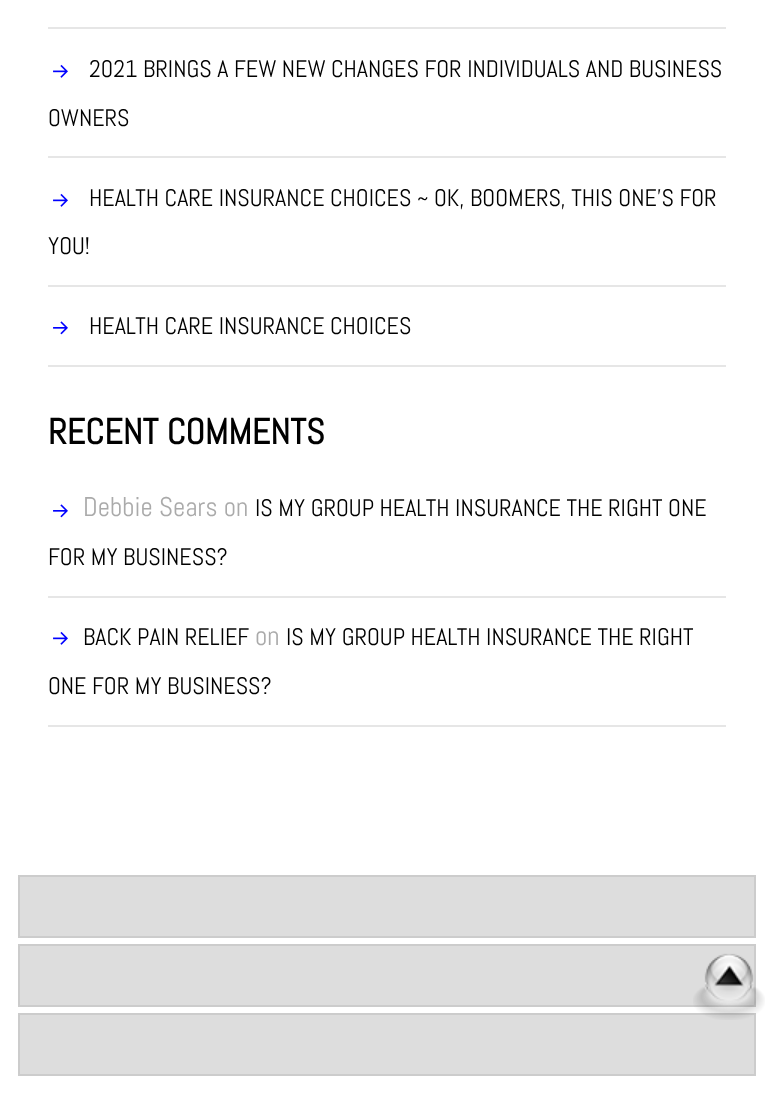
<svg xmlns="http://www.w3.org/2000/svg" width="773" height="1111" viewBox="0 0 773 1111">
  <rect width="100%" height="100%" fill="#ffffff"/>
  <rect x="48" y="27" width="678" height="2" fill="#e6e6e6"/>
  <rect x="48" y="156" width="678" height="2" fill="#e6e6e6"/>
  <image x="53" y="64" width="15" height="14" href="img1.png"/>
  <text x="89" y="77" font-family="Abel" font-size="24" fill="#000000">2021 BRINGS A FEW NEW CHANGES FOR INDIVIDUALS AND BUSINESS</text>
  <text x="48" y="126" font-family="Abel" font-size="24" fill="#000000">OWNERS</text>
  <rect x="48" y="285" width="678" height="2" fill="#e6e6e6"/>
  <image x="53" y="193" width="15" height="14" href="img1.png"/>
  <text x="89" y="206" font-family="Abel" font-size="24" fill="#000000">HEALTH CARE INSURANCE CHOICES ~ OK, BOOMERS, THIS ONE’S FOR</text>
  <text x="48" y="254" font-family="Abel" font-size="24" fill="#000000">YOU!</text>
  <rect x="48" y="365" width="678" height="2" fill="#e6e6e6"/>
  <image x="53" y="321" width="15" height="14" href="img2.png"/>
  <text x="89" y="334" font-family="Abel" font-size="24" fill="#000000">HEALTH CARE INSURANCE CHOICES</text>
  <text x="48" y="444" font-family="Abel" font-size="36" font-weight="bold" fill="#000000">RECENT COMMENTS</text>
  <rect x="48" y="596" width="678" height="2" fill="#e6e6e6"/>
  <image x="53" y="504" width="15" height="14" href="img2.png"/>
  <text x="83" y="516" font-family="Abel" font-size="27" fill="#aaaaaa">Debbie Sears on</text>
  <text x="255" y="516" font-family="Abel" font-size="24" fill="#000000">IS MY GROUP HEALTH INSURANCE THE RIGHT ONE</text>
  <text x="48" y="565" font-family="Abel" font-size="24" fill="#000000">FOR MY BUSINESS?</text>
  <rect x="48" y="725" width="678" height="2" fill="#e6e6e6"/>
  <image x="53" y="631" width="15" height="14" href="img1.png"/>
  <text x="83" y="645" font-family="Abel" font-size="24" fill="#000000">BACK PAIN RELIEF</text>
  <text x="255" y="645" font-family="Abel" font-size="27" fill="#aaaaaa">on</text>
  <text x="286" y="645" font-family="Abel" font-size="24" fill="#000000">IS MY GROUP HEALTH INSURANCE THE RIGHT</text>
  <text x="48" y="694" font-family="Abel" font-size="24" fill="#000000">ONE FOR MY BUSINESS?</text>
  <rect x="19" y="876" width="736" height="61" fill="#dddddd" stroke="#cccccc" stroke-width="2"/>
  <rect x="19" y="945" width="736" height="61" fill="#dddddd" stroke="#cccccc" stroke-width="2"/>
  <rect x="19" y="1014" width="736" height="61" fill="#dddddd" stroke="#cccccc" stroke-width="2"/>
  <image x="693" y="953" width="72" height="67" href="img3.png"/>
</svg>
